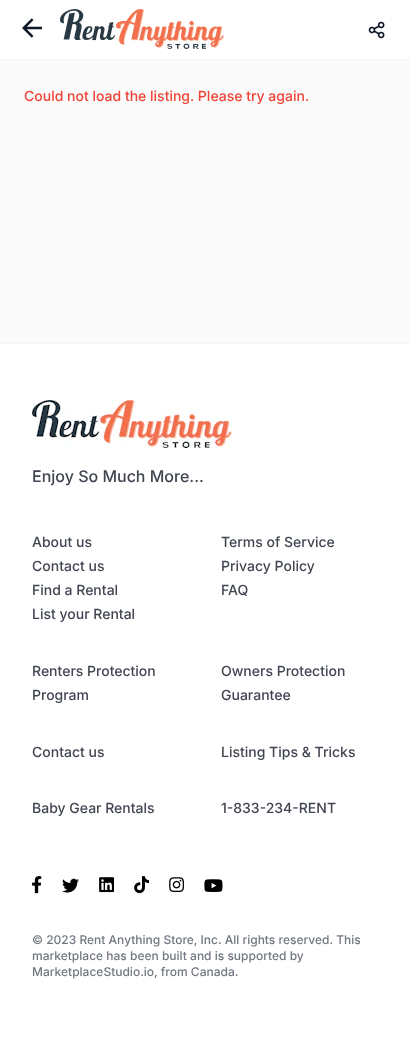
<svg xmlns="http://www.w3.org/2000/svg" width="409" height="1039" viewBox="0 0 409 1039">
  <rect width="100%" height="100%" fill="#fafafa"/>
  <rect x="0" y="0" width="409" height="59" fill="#ffffff"/>
  <rect x="0" y="59" width="409" height="1" fill="#f5f5f5"/>
  <image x="22" y="18" width="20" height="20" href="img1.png"/>
  <image x="60" y="9" width="164" height="40" href="img2.png"/>
  <image x="368" y="21" width="17" height="18" href="img3.png"/>
  <text x="24" y="101" font-family="Inter" font-size="14" font-weight="500" fill="#f04438">Could not load the listing. Please try again.</text>
  <rect x="0" y="344" width="409" height="695" fill="#ffffff"/>
  <rect x="0" y="343" width="409" height="1" fill="#f5f5f5"/>
  <image x="32" y="400" width="200" height="48" href="img4.png"/>
  <text x="32" y="482" font-family="Inter" font-size="16" font-weight="500" fill="#414651">Enjoy So Much More...</text>
  <text x="32" y="547" font-family="Inter" font-size="14" font-weight="500" fill="#414651">About us</text>
  <text x="32" y="571" font-family="Inter" font-size="14" font-weight="500" fill="#414651">Contact us</text>
  <text x="32" y="595" font-family="Inter" font-size="14" font-weight="500" fill="#414651">Find a Rental</text>
  <text x="32" y="619" font-family="Inter" font-size="14" font-weight="500" fill="#414651">List your Rental</text>
  <text x="221" y="547" font-family="Inter" font-size="14" font-weight="500" fill="#414651">Terms of Service</text>
  <text x="221" y="571" font-family="Inter" font-size="14" font-weight="500" fill="#414651">Privacy Policy</text>
  <text x="221" y="595" font-family="Inter" font-size="14" font-weight="500" fill="#414651">FAQ</text>
  <text x="32" y="676" font-family="Inter" font-size="14" font-weight="500" fill="#414651">Renters Protection</text>
  <text x="32" y="700" font-family="Inter" font-size="14" font-weight="500" fill="#414651">Program</text>
  <text x="221" y="676" font-family="Inter" font-size="14" font-weight="500" fill="#414651">Owners Protection</text>
  <text x="221" y="700" font-family="Inter" font-size="14" font-weight="500" fill="#414651">Guarantee</text>
  <text x="32" y="757" font-family="Inter" font-size="14" font-weight="500" fill="#414651">Contact us</text>
  <text x="221" y="757" font-family="Inter" font-size="14" font-weight="500" fill="#414651">Listing Tips &amp; Tricks</text>
  <text x="32" y="813" font-family="Inter" font-size="14" font-weight="500" fill="#414651">Baby Gear Rentals</text>
  <text x="221" y="813" font-family="Inter" font-size="14" font-weight="500" fill="#414651">1-833-234-RENT</text>
  <image x="32" y="876" width="10" height="18" href="img5.png"/>
  <image x="62" y="878" width="17" height="15" href="img6.png"/>
  <image x="99" y="877" width="15" height="16" href="img7.png"/>
  <image x="134" y="876" width="15" height="18" href="img8.png"/>
  <image x="169" y="877" width="15" height="15" href="img9.png"/>
  <image x="204" y="879" width="19" height="13" href="img10.png"/>
  <text x="32" y="944" font-family="Inter" font-size="12" font-weight="500" fill="#717680">© 2023 Rent Anything Store, Inc. All rights reserved. This</text>
  <text x="32" y="960" font-family="Inter" font-size="12" font-weight="500" fill="#717680">marketplace has been built and is supported by</text>
  <text x="32" y="976" font-family="Inter" font-size="12" font-weight="500" fill="#717680">MarketplaceStudio.io, from Canada.</text>
</svg>
